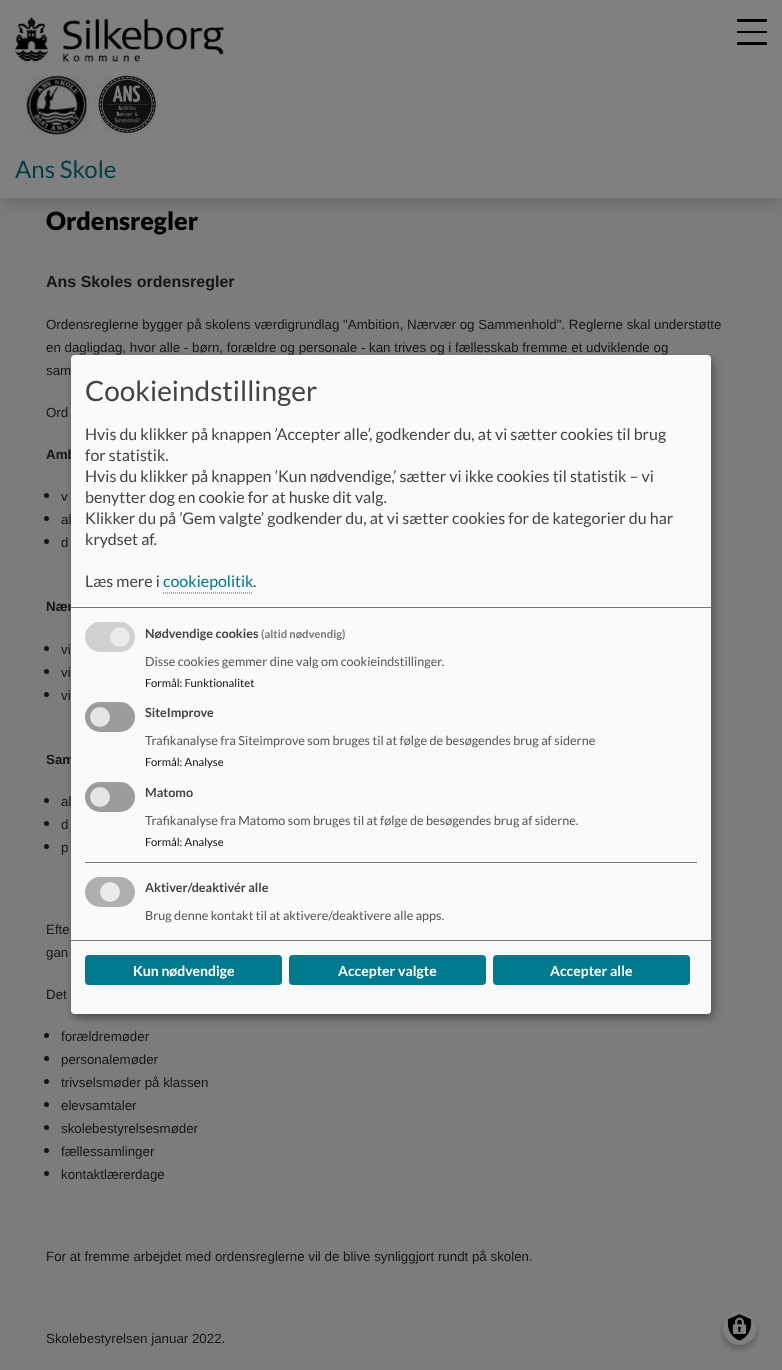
<svg xmlns="http://www.w3.org/2000/svg" width="782" height="1370" viewBox="0 0 782 1370">
  <defs>
    <filter id="blur1" x="-50%" y="-200%" width="200%" height="500%"><feGaussianBlur stdDeviation="11"/></filter>
    <filter id="blur2" x="-50%" y="-200%" width="200%" height="500%"><feGaussianBlur stdDeviation="5"/></filter>
    <filter id="blur3" x="-50%" y="-200%" width="200%" height="500%"><feGaussianBlur stdDeviation="3"/></filter>
    <filter id="blur4" x="-50%" y="-200%" width="200%" height="500%"><feGaussianBlur stdDeviation="2.5"/></filter>
  </defs>
  <rect width="100%" height="100%" fill="#7b7c7c"/>
  <rect x="0" y="2" width="782" height="198" fill="#1a1a1a" fill-opacity="0.2" filter="url(#blur1)"/>
  <rect x="0" y="0" width="782" height="198" fill="#808080"/>
  <rect x="737" y="42" width="30" height="3" fill="#030203"/>
  <rect x="737" y="31" width="30" height="2" fill="#030203"/>
  <rect x="737" y="19" width="30" height="3" fill="#030203"/>
  <image x="15" y="17" width="209" height="45" href="img1.png"/>
  <image x="23" y="75" width="136" height="64" href="img2.png"/>
  <text x="15" y="178" font-family="Lato" font-size="24" fill="#003d47">Ans Skole</text>
  <text x="46" y="230" font-family="Lato" font-size="25" font-weight="900" fill="#000000">Ordensregler</text>
  <text x="46" y="287" font-family="Liberation Sans" font-size="16" font-weight="bold" fill="#141518">Ans Skoles ordensregler</text>
  <text x="46" y="329" font-family="Liberation Sans" font-size="13.33" fill="#141518">Ordensreglerne bygger på skolens værdigrundlag "Ambition, Nærvær og Sammenhold". Reglerne skal understøtte</text>
  <text x="46" y="352" font-family="Liberation Sans" font-size="13.33" fill="#141518">en dagligdag, hvor alle - børn, forældre og personale - kan trives og i fællesskab fremme et udviklende og</text>
  <text x="46" y="375" font-family="Liberation Sans" font-size="13.33" fill="#141518">sam</text>
  <text x="46" y="417" font-family="Liberation Sans" font-size="13.33" fill="#141518">Ord</text>
  <text x="46" y="459" font-family="Liberation Sans" font-size="13.33" font-weight="bold" fill="#141518">Amb</text>
  <circle cx="46.5" cy="495.5" r="2.5" fill="#141518"/>
  <text x="61" y="501" font-family="Liberation Sans" font-size="13.33" fill="#141518">v</text>
  <circle cx="46.5" cy="518.5" r="2.5" fill="#141518"/>
  <text x="61" y="524" font-family="Liberation Sans" font-size="13.33" fill="#141518">al</text>
  <circle cx="46.5" cy="541.5" r="2.5" fill="#141518"/>
  <text x="61" y="547" font-family="Liberation Sans" font-size="13.33" fill="#141518">d</text>
  <text x="46" y="611" font-family="Liberation Sans" font-size="13.33" font-weight="bold" fill="#141518">Nær</text>
  <circle cx="46.5" cy="648.5" r="2.5" fill="#141518"/>
  <text x="61" y="654" font-family="Liberation Sans" font-size="13.33" fill="#141518">vi</text>
  <circle cx="46.5" cy="671.5" r="2.5" fill="#141518"/>
  <text x="61" y="677" font-family="Liberation Sans" font-size="13.33" fill="#141518">vi</text>
  <circle cx="46.5" cy="694.5" r="2.5" fill="#141518"/>
  <text x="61" y="700" font-family="Liberation Sans" font-size="13.33" fill="#141518">vi</text>
  <text x="46" y="764" font-family="Liberation Sans" font-size="13.33" font-weight="bold" fill="#141518">Sam</text>
  <circle cx="46.5" cy="800.5" r="2.5" fill="#141518"/>
  <text x="61" y="806" font-family="Liberation Sans" font-size="13.33" fill="#141518">al</text>
  <circle cx="46.5" cy="823.5" r="2.5" fill="#141518"/>
  <text x="61" y="829" font-family="Liberation Sans" font-size="13.33" fill="#141518">d</text>
  <circle cx="46.5" cy="846.5" r="2.5" fill="#141518"/>
  <text x="61" y="852" font-family="Liberation Sans" font-size="13.33" fill="#141518">p</text>
  <text x="46" y="934" font-family="Liberation Sans" font-size="13.33" fill="#141518">Efte</text>
  <text x="46" y="957" font-family="Liberation Sans" font-size="13.33" fill="#141518">gan</text>
  <text x="46" y="999" font-family="Liberation Sans" font-size="13.33" fill="#141518">Det</text>
  <circle cx="46.5" cy="1035.5" r="2.5" fill="#141518"/>
  <text x="61" y="1041" font-family="Liberation Sans" font-size="13.33" fill="#141518">forældremøder</text>
  <circle cx="46.5" cy="1058.5" r="2.5" fill="#141518"/>
  <text x="61" y="1064" font-family="Liberation Sans" font-size="13.33" fill="#141518">personalemøder</text>
  <circle cx="46.5" cy="1081.5" r="2.5" fill="#141518"/>
  <text x="61" y="1087" font-family="Liberation Sans" font-size="13.33" fill="#141518">trivselsmøder på klassen</text>
  <circle cx="46.5" cy="1104.5" r="2.5" fill="#141518"/>
  <text x="61" y="1110" font-family="Liberation Sans" font-size="13.33" fill="#141518">elevsamtaler</text>
  <circle cx="46.5" cy="1127.5" r="2.5" fill="#141518"/>
  <text x="61" y="1133" font-family="Liberation Sans" font-size="13.33" fill="#141518">skolebestyrelsesmøder</text>
  <circle cx="46.5" cy="1150.5" r="2.5" fill="#141518"/>
  <text x="61" y="1156" font-family="Liberation Sans" font-size="13.33" fill="#141518">fællessamlinger</text>
  <circle cx="46.5" cy="1173.5" r="2.5" fill="#141518"/>
  <text x="61" y="1179" font-family="Liberation Sans" font-size="13.33" fill="#141518">kontaktlærerdage</text>
  <text x="46" y="1261" font-family="Liberation Sans" font-size="13.33" fill="#141518">For at fremme arbejdet med ordensreglerne vil de blive synliggjort rundt på skolen.</text>
  <text x="46" y="1343" font-family="Liberation Sans" font-size="13.33" fill="#141518">Skolebestyrelsen januar 2022.</text>
  <rect x="76" y="360" width="640" height="659" rx="4" fill="#000000" fill-opacity="0.19" filter="url(#blur2)"/>
  <rect x="71" y="359" width="640" height="659" rx="4" fill="#000000" fill-opacity="0.2" filter="url(#blur3)"/>
  <rect x="71" y="355" width="640" height="659" rx="4" fill="#fafafa"/>
  <rect x="71" y="607" width="640" height="1" fill="#777777"/>
  <text x="85" y="401" font-family="Lato" font-size="28" fill="#444444">Cookieindstillinger</text>
  <text x="85" y="440" font-family="Lato" font-size="16" fill="#444444">Hvis du klikker på knappen ’Accepter alle’, godkender du, at vi sætter cookies til brug</text>
  <text x="85" y="461" font-family="Lato" font-size="16" fill="#444444">for statistik.</text>
  <text x="85" y="482" font-family="Lato" font-size="16" fill="#444444">Hvis du klikker på knappen ’Kun nødvendige,’ sætter vi ikke cookies til statistik – vi</text>
  <text x="85" y="503" font-family="Lato" font-size="16" fill="#444444">benytter dog en cookie for at huske dit valg.</text>
  <text x="85" y="524" font-family="Lato" font-size="16" fill="#444444">Klikker du på ’Gem valgte’ godkender du, at vi sætter cookies for de kategorier du har</text>
  <text x="85" y="545" font-family="Lato" font-size="16" fill="#444444">krydset af.</text>
  <text x="85" y="587" font-family="Lato" font-size="16" fill="#444444">Læs mere i</text>
  <path d="M163 593H253" fill="none" stroke="#007a8d" stroke-dasharray="1 1"/>
  <text x="163" y="587" font-family="Lato" font-size="16" fill="#007a8d">cookiepolitik</text>
  <text x="253" y="587" font-family="Lato" font-size="16" fill="#444444">.</text>
  <rect x="85" y="622" width="50" height="30" rx="15" fill="#d0d0d0"/>
  <circle cx="120" cy="637" r="10" fill="#eaeaea"/>
  <text x="145" y="638" font-family="Lato" font-size="12.6" font-weight="bold" fill="#444444">Nødvendige cookies</text>
  <text x="261" y="638" font-family="Lato" font-size="11.25" font-weight="bold" fill="#777777">(altid nødvendig)</text>
  <text x="145" y="666" font-family="Lato" font-size="12.6" fill="#555555">Disse cookies gemmer dine valg om cookieindstillinger.</text>
  <text x="145" y="687" font-family="Lato" font-size="11.25" fill="#111111">Formål: Funktionalitet</text>
  <rect x="85" y="702" width="50" height="30" rx="15" fill="#9c9c9c"/>
  <circle cx="100" cy="717" r="10" fill="#e6e6e6"/>
  <text x="145" y="717" font-family="Lato" font-size="12.6" font-weight="bold" fill="#444444">SiteImprove</text>
  <text x="145" y="745" font-family="Lato" font-size="12.6" fill="#555555">Trafikanalyse fra Siteimprove som bruges til at følge de besøgendes brug af siderne</text>
  <text x="145" y="766" font-family="Lato" font-size="11.25" fill="#111111">Formål: Analyse</text>
  <rect x="85" y="782" width="50" height="30" rx="15" fill="#9c9c9c"/>
  <circle cx="100" cy="797" r="10" fill="#e6e6e6"/>
  <text x="145" y="797" font-family="Lato" font-size="12.6" font-weight="bold" fill="#444444">Matomo</text>
  <text x="145" y="825" font-family="Lato" font-size="12.6" fill="#555555">Trafikanalyse fra Matomo som bruges til at følge de besøgendes brug af siderne.</text>
  <text x="145" y="846" font-family="Lato" font-size="11.25" fill="#111111">Formål: Analyse</text>
  <rect x="85" y="862" width="612" height="1" fill="#777777"/>
  <rect x="85" y="877" width="50" height="30" rx="15" fill="#afafaf"/>
  <circle cx="110" cy="892" r="10" fill="#eaeaea"/>
  <text x="145" y="892" font-family="Lato" font-size="12.6" font-weight="bold" fill="#444444">Aktiver/deaktivér alle</text>
  <text x="145" y="920" font-family="Lato" font-size="12.6" fill="#555555">Brug denne kontakt til at aktivere/deaktivere alle apps.</text>
  <rect x="71" y="940" width="640" height="1" fill="#777777"/>
  <rect x="85" y="955" width="197" height="30" rx="4" fill="#007a8d"/>
  <text x="133" y="976" font-family="Lato" font-size="14" font-weight="bold" fill="#ffffff">Kun nødvendige</text>
  <rect x="289" y="955" width="197" height="30" rx="4" fill="#007a8d"/>
  <text x="338" y="976" font-family="Lato" font-size="14" font-weight="bold" fill="#ffffff">Accepter valgte</text>
  <rect x="493" y="955" width="197" height="30" rx="4" fill="#007a8d"/>
  <text x="550" y="976" font-family="Lato" font-size="14" font-weight="bold" fill="#ffffff">Accepter alle</text>
  <rect x="722" y="1315" width="35" height="35" rx="17.5" fill="#000000" fill-opacity="0.2" filter="url(#blur4)"/>
  <circle cx="739.5" cy="1327.5" r="17.5" fill="#808080"/>
  <image x="727" y="1314" width="25" height="27" href="img3.png"/>
  <circle cx="739.5" cy="1327.5" r="17" fill="none" stroke="#757575"/>
</svg>
